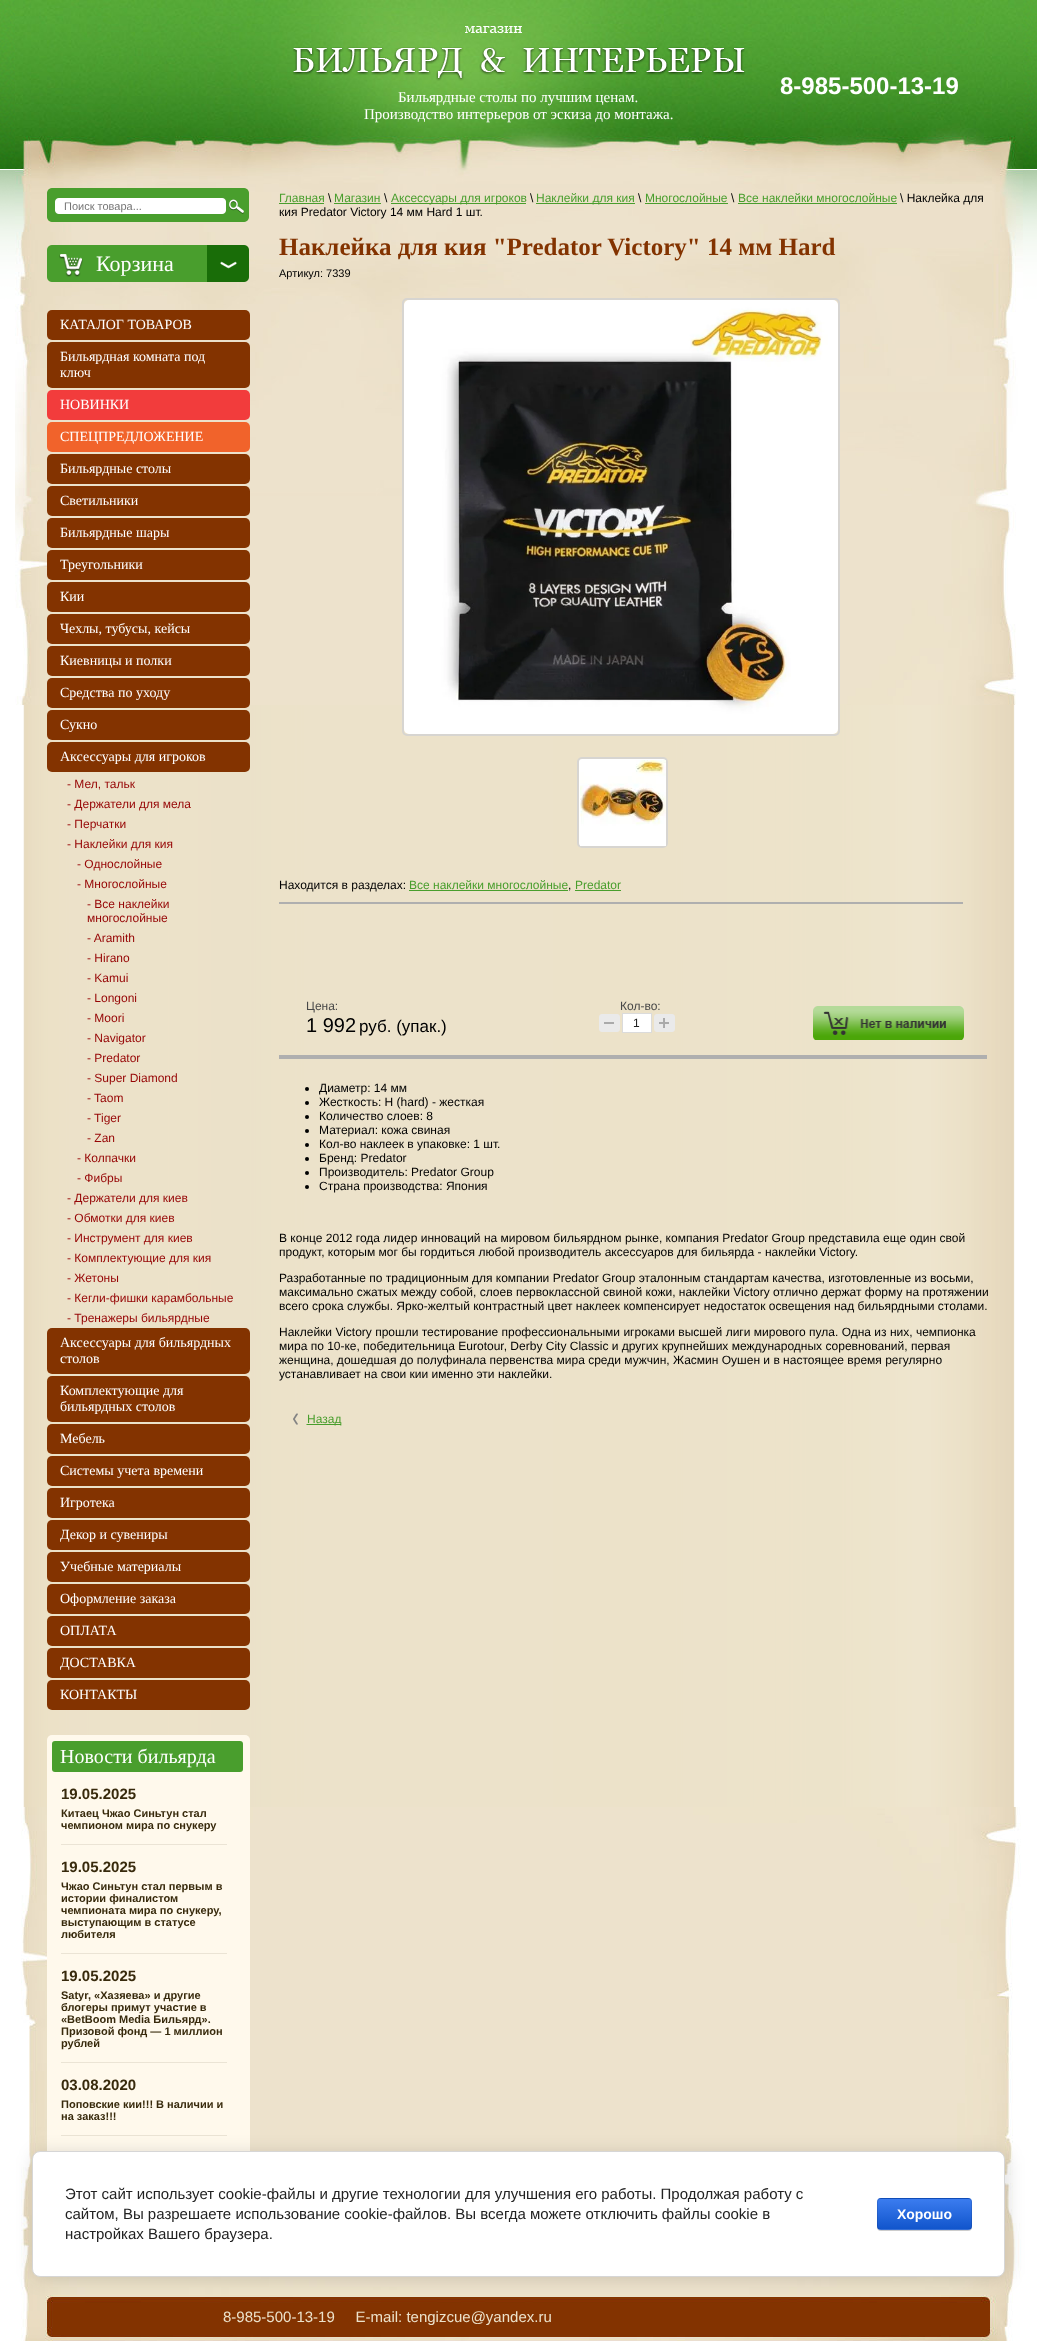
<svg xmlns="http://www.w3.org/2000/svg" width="1037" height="2341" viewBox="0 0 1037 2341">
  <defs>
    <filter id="blur1" x="-50%" y="-200%" width="200%" height="500%"><feGaussianBlur stdDeviation="9"/></filter>
    <filter id="blur2" x="-50%" y="-200%" width="200%" height="500%"><feGaussianBlur stdDeviation="0.5"/></filter>
    <clipPath id="clip1"><rect x="877" y="2198" width="95" height="32" rx="4"/></clipPath>
    <linearGradient id="g1" gradientUnits="userSpaceOnUse" x1="925" y1="2169" x2="925" y2="2199"><stop offset="0" stop-color="#3b7cef"/><stop offset="1" stop-color="#1155cc"/></linearGradient>
    <linearGradient id="g2" gradientUnits="userSpaceOnUse" x1="925" y1="2199" x2="925" y2="2229"><stop offset="0" stop-color="#3b7cef"/><stop offset="1" stop-color="#1155cc"/></linearGradient>
    <linearGradient id="g3" gradientUnits="userSpaceOnUse" x1="925" y1="2229" x2="925" y2="2259"><stop offset="0" stop-color="#3b7cef"/><stop offset="1" stop-color="#1155cc"/></linearGradient>
  </defs>
  <rect width="100%" height="100%" fill="#ffffff"/>
  <image x="23" y="705" width="992" height="1102" href="img1.png"/>
  <image x="0" y="0" width="1037" height="369" href="img2.png"/>
  <image x="21" y="1807" width="1000" height="534" href="img3.png"/>
  <image x="15" y="0" width="1008" height="705" href="img4.png"/>
  <image x="293" y="26" width="452" height="55" href="img5.png"/>
  <text x="780" y="94" font-family="Liberation Sans" font-size="24" font-weight="bold" fill="#ffffff">8-985-500-13-19</text>
  <text x="398" y="102" font-family="Liberation Serif" font-size="15" fill="#ffffff">Бильярдные столы по лучшим ценам.</text>
  <text x="364" y="119" font-family="Liberation Serif" font-size="15" fill="#ffffff">Производство интерьеров от эскиза до монтажа.</text>
  <image x="47" y="188" width="202" height="34" href="img6.png"/>
  <text x="64" y="210" font-family="Liberation Sans" font-size="11" fill="#757575">Поиск товара...</text>
  <image x="47" y="245" width="202" height="37" href="img7.png"/>
  <text x="96" y="271" font-family="Liberation Serif" font-size="22" fill="#ffffff">Корзина</text>
  <rect x="47" y="310" width="203" height="30" rx="5" fill="#833300"/>
  <text x="60" y="329" font-family="Liberation Serif" font-size="14" fill="#ffffff">КАТАЛОГ ТОВАРОВ</text>
  <rect x="47" y="342" width="203" height="46" rx="5" fill="#833300"/>
  <text x="60" y="361" font-family="Liberation Serif" font-size="14" fill="#ffffff">Бильярдная комната под</text>
  <text x="60" y="377" font-family="Liberation Serif" font-size="14" fill="#ffffff">ключ</text>
  <rect x="47" y="390" width="203" height="30" rx="5" fill="#f23c3c"/>
  <text x="60" y="409" font-family="Liberation Serif" font-size="14" fill="#ffffff">НОВИНКИ</text>
  <rect x="47" y="422" width="203" height="30" rx="5" fill="#f1632b"/>
  <text x="60" y="441" font-family="Liberation Serif" font-size="14" fill="#ffffff">СПЕЦПРЕДЛОЖЕНИЕ</text>
  <rect x="47" y="454" width="203" height="30" rx="5" fill="#833300"/>
  <text x="60" y="473" font-family="Liberation Serif" font-size="14" fill="#ffffff">Бильярдные столы</text>
  <rect x="47" y="486" width="203" height="30" rx="5" fill="#833300"/>
  <text x="60" y="505" font-family="Liberation Serif" font-size="14" fill="#ffffff">Светильники</text>
  <rect x="47" y="518" width="203" height="30" rx="5" fill="#833300"/>
  <text x="60" y="537" font-family="Liberation Serif" font-size="14" fill="#ffffff">Бильярдные шары</text>
  <rect x="47" y="550" width="203" height="30" rx="5" fill="#833300"/>
  <text x="60" y="569" font-family="Liberation Serif" font-size="14" fill="#ffffff">Треугольники</text>
  <rect x="47" y="582" width="203" height="30" rx="5" fill="#833300"/>
  <text x="60" y="601" font-family="Liberation Serif" font-size="14" fill="#ffffff">Кии</text>
  <rect x="47" y="614" width="203" height="30" rx="5" fill="#833300"/>
  <text x="60" y="633" font-family="Liberation Serif" font-size="14" fill="#ffffff">Чехлы, тубусы, кейсы</text>
  <rect x="47" y="646" width="203" height="30" rx="5" fill="#833300"/>
  <text x="60" y="665" font-family="Liberation Serif" font-size="14" fill="#ffffff">Киевницы и полки</text>
  <rect x="47" y="678" width="203" height="30" rx="5" fill="#833300"/>
  <text x="60" y="697" font-family="Liberation Serif" font-size="14" fill="#ffffff">Средства по уходу</text>
  <rect x="47" y="710" width="203" height="30" rx="5" fill="#833300"/>
  <text x="60" y="729" font-family="Liberation Serif" font-size="14" fill="#ffffff">Сукно</text>
  <rect x="47" y="742" width="203" height="30" rx="5" fill="#833300"/>
  <text x="60" y="761" font-family="Liberation Serif" font-size="14" fill="#ffffff">Аксессуары для игроков</text>
  <text x="67" y="788" font-family="Liberation Sans" font-size="12" fill="#960505">- Мел, тальк</text>
  <text x="67" y="808" font-family="Liberation Sans" font-size="12" fill="#960505">- Держатели для мела</text>
  <text x="67" y="828" font-family="Liberation Sans" font-size="12" fill="#960505">- Перчатки</text>
  <text x="67" y="848" font-family="Liberation Sans" font-size="12" fill="#960505">- Наклейки для кия</text>
  <text x="77" y="868" font-family="Liberation Sans" font-size="12" fill="#960505">- Однослойные</text>
  <text x="77" y="888" font-family="Liberation Sans" font-size="12" fill="#960505">- Многослойные</text>
  <text x="87" y="908" font-family="Liberation Sans" font-size="12" fill="#960505">- Все наклейки</text>
  <text x="87" y="922" font-family="Liberation Sans" font-size="12" fill="#960505">многослойные</text>
  <text x="87" y="942" font-family="Liberation Sans" font-size="12" fill="#960505">- Aramith</text>
  <text x="87" y="962" font-family="Liberation Sans" font-size="12" fill="#960505">- Hirano</text>
  <text x="87" y="982" font-family="Liberation Sans" font-size="12" fill="#960505">- Kamui</text>
  <text x="87" y="1002" font-family="Liberation Sans" font-size="12" fill="#960505">- Longoni</text>
  <text x="87" y="1022" font-family="Liberation Sans" font-size="12" fill="#960505">- Moori</text>
  <text x="87" y="1042" font-family="Liberation Sans" font-size="12" fill="#960505">- Navigator</text>
  <text x="87" y="1062" font-family="Liberation Sans" font-size="12" fill="#960505">- Predator</text>
  <text x="87" y="1082" font-family="Liberation Sans" font-size="12" fill="#960505">- Super Diamond</text>
  <text x="87" y="1102" font-family="Liberation Sans" font-size="12" fill="#960505">- Taom</text>
  <text x="87" y="1122" font-family="Liberation Sans" font-size="12" fill="#960505">- Tiger</text>
  <text x="87" y="1142" font-family="Liberation Sans" font-size="12" fill="#960505">- Zan</text>
  <text x="77" y="1162" font-family="Liberation Sans" font-size="12" fill="#960505">- Колпачки</text>
  <text x="77" y="1182" font-family="Liberation Sans" font-size="12" fill="#960505">- Фибры</text>
  <text x="67" y="1202" font-family="Liberation Sans" font-size="12" fill="#960505">- Держатели для киев</text>
  <text x="67" y="1222" font-family="Liberation Sans" font-size="12" fill="#960505">- Обмотки для киев</text>
  <text x="67" y="1242" font-family="Liberation Sans" font-size="12" fill="#960505">- Инструмент для киев</text>
  <text x="67" y="1262" font-family="Liberation Sans" font-size="12" fill="#960505">- Комплектующие для кия</text>
  <text x="67" y="1282" font-family="Liberation Sans" font-size="12" fill="#960505">- Жетоны</text>
  <text x="67" y="1302" font-family="Liberation Sans" font-size="12" fill="#960505">- Кегли-фишки карамбольные</text>
  <text x="67" y="1322" font-family="Liberation Sans" font-size="12" fill="#960505">- Тренажеры бильярдные</text>
  <rect x="47" y="1328" width="203" height="46" rx="5" fill="#833300"/>
  <text x="60" y="1347" font-family="Liberation Serif" font-size="14" fill="#ffffff">Аксессуары для бильярдных</text>
  <text x="60" y="1363" font-family="Liberation Serif" font-size="14" fill="#ffffff">столов</text>
  <rect x="47" y="1376" width="203" height="46" rx="5" fill="#833300"/>
  <text x="60" y="1395" font-family="Liberation Serif" font-size="14" fill="#ffffff">Комплектующие для</text>
  <text x="60" y="1411" font-family="Liberation Serif" font-size="14" fill="#ffffff">бильярдных столов</text>
  <rect x="47" y="1424" width="203" height="30" rx="5" fill="#833300"/>
  <text x="60" y="1443" font-family="Liberation Serif" font-size="14" fill="#ffffff">Мебель</text>
  <rect x="47" y="1456" width="203" height="30" rx="5" fill="#833300"/>
  <text x="60" y="1475" font-family="Liberation Serif" font-size="14" fill="#ffffff">Системы учета времени</text>
  <rect x="47" y="1488" width="203" height="30" rx="5" fill="#833300"/>
  <text x="60" y="1507" font-family="Liberation Serif" font-size="14" fill="#ffffff">Игротека</text>
  <rect x="47" y="1520" width="203" height="30" rx="5" fill="#833300"/>
  <text x="60" y="1539" font-family="Liberation Serif" font-size="14" fill="#ffffff">Декор и сувениры</text>
  <rect x="47" y="1552" width="203" height="30" rx="5" fill="#833300"/>
  <text x="60" y="1571" font-family="Liberation Serif" font-size="14" fill="#ffffff">Учебные материалы</text>
  <rect x="47" y="1584" width="203" height="30" rx="5" fill="#833300"/>
  <text x="60" y="1603" font-family="Liberation Serif" font-size="14" fill="#ffffff">Оформление заказа</text>
  <rect x="47" y="1616" width="203" height="30" rx="5" fill="#833300"/>
  <text x="60" y="1635" font-family="Liberation Serif" font-size="14" fill="#ffffff">ОПЛАТА</text>
  <rect x="47" y="1648" width="203" height="30" rx="5" fill="#833300"/>
  <text x="60" y="1667" font-family="Liberation Serif" font-size="14" fill="#ffffff">ДОСТАВКА</text>
  <rect x="47" y="1680" width="203" height="30" rx="5" fill="#833300"/>
  <text x="60" y="1699" font-family="Liberation Serif" font-size="14" fill="#ffffff">КОНТАКТЫ</text>
  <rect x="47" y="1735" width="203" height="488" rx="5" fill="#fff9ec"/>
  <rect x="52" y="1741" width="191" height="31" rx="3" fill="#499e2d"/>
  <text x="60" y="1763" font-family="Liberation Serif" font-size="20" fill="#ffffff">Новости бильярда</text>
  <text x="61" y="1799" font-family="Liberation Sans" font-size="15" font-weight="bold" fill="#382a0c">19.05.2025</text>
  <text x="61" y="1817" font-family="Liberation Sans" font-size="11" font-weight="bold" fill="#382a0c">Китаец Чжао Синьтун стал</text>
  <text x="61" y="1829" font-family="Liberation Sans" font-size="11" font-weight="bold" fill="#382a0c">чемпионом мира по снукеру</text>
  <rect x="61" y="1844" width="166" height="1" fill="#ebe4d5"/>
  <text x="61" y="1872" font-family="Liberation Sans" font-size="15" font-weight="bold" fill="#382a0c">19.05.2025</text>
  <text x="61" y="1890" font-family="Liberation Sans" font-size="11" font-weight="bold" fill="#382a0c">Чжао Синьтун стал первым в</text>
  <text x="61" y="1902" font-family="Liberation Sans" font-size="11" font-weight="bold" fill="#382a0c">истории финалистом</text>
  <text x="61" y="1914" font-family="Liberation Sans" font-size="11" font-weight="bold" fill="#382a0c">чемпионата мира по снукеру,</text>
  <text x="61" y="1926" font-family="Liberation Sans" font-size="11" font-weight="bold" fill="#382a0c">выступающим в статусе</text>
  <text x="61" y="1938" font-family="Liberation Sans" font-size="11" font-weight="bold" fill="#382a0c">любителя</text>
  <rect x="61" y="1953" width="166" height="1" fill="#ebe4d5"/>
  <text x="61" y="1981" font-family="Liberation Sans" font-size="15" font-weight="bold" fill="#382a0c">19.05.2025</text>
  <text x="61" y="1999" font-family="Liberation Sans" font-size="11" font-weight="bold" fill="#382a0c">Satyr, «Хазяева» и другие</text>
  <text x="61" y="2011" font-family="Liberation Sans" font-size="11" font-weight="bold" fill="#382a0c">блогеры примут участие в</text>
  <text x="61" y="2023" font-family="Liberation Sans" font-size="11" font-weight="bold" fill="#382a0c">«BetBoom Media Бильярд».</text>
  <text x="61" y="2035" font-family="Liberation Sans" font-size="11" font-weight="bold" fill="#382a0c">Призовой фонд — 1 миллион</text>
  <text x="61" y="2047" font-family="Liberation Sans" font-size="11" font-weight="bold" fill="#382a0c">рублей</text>
  <rect x="61" y="2062" width="166" height="1" fill="#ebe4d5"/>
  <text x="61" y="2090" font-family="Liberation Sans" font-size="15" font-weight="bold" fill="#382a0c">03.08.2020</text>
  <text x="61" y="2108" font-family="Liberation Sans" font-size="11" font-weight="bold" fill="#382a0c">Поповские кии!!! В наличии и</text>
  <text x="61" y="2120" font-family="Liberation Sans" font-size="11" font-weight="bold" fill="#382a0c">на заказ!!!</text>
  <rect x="61" y="2135" width="166" height="1" fill="#ebe4d5"/>
  <text x="279" y="202" font-family="Liberation Sans" font-size="12" fill="#499e2d">Главная</text>
  <rect x="279" y="203" width="45" height="1" fill="#499e2d"/>
  <text x="328" y="202" font-family="Liberation Sans" font-size="12" fill="#000000">\</text>
  <text x="334" y="202" font-family="Liberation Sans" font-size="12" fill="#499e2d">Магазин</text>
  <rect x="334" y="203" width="47" height="1" fill="#499e2d"/>
  <text x="384" y="202" font-family="Liberation Sans" font-size="12" fill="#000000">\</text>
  <rect x="391" y="203" width="135" height="1" fill="#499e2d"/>
  <text x="391" y="202" font-family="Liberation Sans" font-size="12" fill="#499e2d">Аксессуары для игроков</text>
  <text x="530" y="202" font-family="Liberation Sans" font-size="12" fill="#000000">\</text>
  <rect x="536" y="203" width="99" height="1" fill="#499e2d"/>
  <text x="536" y="202" font-family="Liberation Sans" font-size="12" fill="#499e2d">Наклейки для кия</text>
  <text x="638" y="202" font-family="Liberation Sans" font-size="12" fill="#000000">\</text>
  <text x="645" y="202" font-family="Liberation Sans" font-size="12" fill="#499e2d">Многослойные</text>
  <rect x="645" y="203" width="83" height="1" fill="#499e2d"/>
  <text x="731" y="202" font-family="Liberation Sans" font-size="12" fill="#000000">\</text>
  <text x="738" y="202" font-family="Liberation Sans" font-size="12" fill="#499e2d">Все наклейки многослойные</text>
  <rect x="738" y="203" width="159" height="1" fill="#499e2d"/>
  <text x="900" y="202" font-family="Liberation Sans" font-size="12" fill="#000000">\ Наклейка для</text>
  <text x="279" y="216" font-family="Liberation Sans" font-size="12" fill="#000000">кия Predator Victory 14 мм Hard 1 шт.</text>
  <text x="279" y="255" font-family="Liberation Serif" font-size="25" font-weight="bold" fill="#833300">Наклейка для кия "Predator Victory" 14 мм Hard</text>
  <text x="279" y="277" font-family="Liberation Sans" font-size="11" fill="#000000">Артикул: 7339</text>
  <rect x="403" y="299" width="436" height="436" rx="4" fill="none" stroke="#d7d5d1" stroke-width="2"/>
  <image x="404" y="300" width="434" height="434" href="img8.png"/>
  <rect x="578" y="758" width="89" height="89" rx="4" fill="#ffffff" stroke="#d7d5d1" stroke-width="2"/>
  <image x="580" y="760" width="86" height="86" href="img9.png"/>
  <text x="279" y="889" font-family="Liberation Sans" font-size="12" fill="#000000">Находится в разделах:</text>
  <text x="409" y="889" font-family="Liberation Sans" font-size="12" fill="#499e2d">Все наклейки многослойные</text>
  <rect x="409" y="890" width="159" height="1" fill="#499e2d"/>
  <text x="568" y="889" font-family="Liberation Sans" font-size="12" fill="#000000">,</text>
  <text x="575" y="889" font-family="Liberation Sans" font-size="12" fill="#499e2d">Predator</text>
  <rect x="575" y="890" width="46" height="1" fill="#499e2d"/>
  <rect x="279" y="902" width="684" height="2" fill="#afafaf"/>
  <rect x="279" y="1055" width="708" height="4" fill="#afafaf"/>
  <text x="306" y="1010" font-family="Liberation Sans" font-size="12" fill="#484848">Цена:</text>
  <text x="306" y="1032" font-family="Liberation Sans" font-size="20" fill="#000000">1 992</text>
  <text x="359" y="1032" font-family="Liberation Sans" font-size="17" fill="#000000">руб. (упак.)</text>
  <text x="620" y="1010" font-family="Liberation Sans" font-size="12" fill="#484848">Кол-во:</text>
  <image x="599" y="1014" width="21" height="18" href="img10.png"/>
  <rect x="622.5" y="1013.5" width="29" height="19" fill="#ffffff" stroke="#dbdbdb"/>
  <text x="633" y="1027" font-family="Liberation Sans" font-size="12" fill="#222222">1</text>
  <image x="654" y="1014" width="21" height="18" href="img11.png"/>
  <image x="813" y="1006" width="151" height="34" href="img12.png"/>
  <circle cx="307" cy="1089" r="2" fill="#000000"/>
  <text x="319" y="1092" font-family="Liberation Sans" font-size="12" fill="#000000">Диаметр: 14 мм</text>
  <circle cx="307" cy="1103" r="2" fill="#000000"/>
  <text x="319" y="1106" font-family="Liberation Sans" font-size="12" fill="#000000">Жесткость: H (hard) - жесткая</text>
  <circle cx="307" cy="1117" r="2" fill="#000000"/>
  <text x="319" y="1120" font-family="Liberation Sans" font-size="12" fill="#000000">Количество слоев: 8</text>
  <circle cx="307" cy="1131" r="2" fill="#000000"/>
  <text x="319" y="1134" font-family="Liberation Sans" font-size="12" fill="#000000">Материал: кожа свиная</text>
  <circle cx="307" cy="1145" r="2" fill="#000000"/>
  <text x="319" y="1148" font-family="Liberation Sans" font-size="12" fill="#000000">Кол-во наклеек в упаковке: 1 шт.</text>
  <circle cx="307" cy="1159" r="2" fill="#000000"/>
  <text x="319" y="1162" font-family="Liberation Sans" font-size="12" fill="#000000">Бренд: Predator</text>
  <circle cx="307" cy="1173" r="2" fill="#000000"/>
  <text x="319" y="1176" font-family="Liberation Sans" font-size="12" fill="#000000">Производитель: Predator Group</text>
  <circle cx="307" cy="1187" r="2" fill="#000000"/>
  <text x="319" y="1190" font-family="Liberation Sans" font-size="12" fill="#000000">Страна производства: Япония</text>
  <text x="279" y="1242" font-family="Liberation Sans" font-size="12" fill="#000000">В конце 2012 года лидер инноваций на мировом бильярдном рынке, компания Predator Group представила еще один свой</text>
  <text x="279" y="1256" font-family="Liberation Sans" font-size="12" fill="#000000">продукт, которым мог бы гордиться любой производитель аксессуаров для бильярда - наклейки Victory.</text>
  <text x="279" y="1282" font-family="Liberation Sans" font-size="12" fill="#000000">Разработанные по традиционным для компании Predator Group эталонным стандартам качества, изготовленные из восьми,</text>
  <text x="279" y="1296" font-family="Liberation Sans" font-size="12" fill="#000000">максимально сжатых между собой, слоев первоклассной свиной кожи, наклейки Victory отлично держат форму на протяжении</text>
  <text x="279" y="1310" font-family="Liberation Sans" font-size="12" fill="#000000">всего срока службы. Ярко-желтый контрастный цвет наклеек компенсирует недостаток освещения над бильярдными столами.</text>
  <text x="279" y="1336" font-family="Liberation Sans" font-size="12" fill="#000000">Наклейки Victory прошли тестирование профессиональными игроками высшей лиги мирового пула. Одна из них, чемпионка</text>
  <text x="279" y="1350" font-family="Liberation Sans" font-size="12" fill="#000000">мира по 10-ке, победительница Eurotour, Derby City Classic и других крупнейших международных соревнований, первая</text>
  <text x="279" y="1364" font-family="Liberation Sans" font-size="12" fill="#000000">женщина, дошедшая до полуфинала первенства мира среди мужчин, Жасмин Оушен и в настоящее время регулярно</text>
  <text x="279" y="1378" font-family="Liberation Sans" font-size="12" fill="#000000">устанавливает на свои кии именно эти наклейки.</text>
  <image x="293" y="1413" width="14" height="12" href="img13.png"/>
  <rect x="307" y="1424" width="34" height="1" fill="#499e2d"/>
  <text x="307" y="1423" font-family="Liberation Sans" font-size="12" fill="#499e2d">Назад</text>
  <rect x="34" y="2153" width="973" height="126" rx="8" fill="#000000" fill-opacity="0.14" filter="url(#blur1)"/>
  <rect x="32.5" y="2151.5" width="972" height="125" rx="7.5" fill="#ffffff" stroke="#d6d6d6"/>
  <text x="65" y="2199" font-family="Liberation Sans" font-size="15" fill="#222222">Этот сайт использует cookie-файлы и другие технологии для улучшения его работы. Продолжая работу с</text>
  <text x="65" y="2219" font-family="Liberation Sans" font-size="15" fill="#222222">сайтом, Вы разрешаете использование cookie-файлов. Вы всегда можете отключить файлы cookie в</text>
  <text x="65" y="2239" font-family="Liberation Sans" font-size="15" fill="#222222">настройках Вашего браузера.</text>
  <rect x="877" y="2199" width="95" height="32" rx="4" fill="#000000" fill-opacity="0.2" filter="url(#blur2)"/>
  <g clip-path="url(#clip1)">
    <rect x="877" y="2198" width="95" height="1" fill="url(#g1)"/>
    <rect x="877" y="2199" width="95" height="30" fill="url(#g2)"/>
    <rect x="877" y="2229" width="95" height="1" fill="url(#g3)"/>
  </g>
  <rect x="877.5" y="2198.5" width="94" height="31" rx="3.5" fill="none" stroke="#000000" stroke-opacity="0.1"/>
  <text x="897" y="2219" font-family="Liberation Sans" font-size="14" font-weight="bold" fill="#ffffff">Хорошо</text>
  <text x="223" y="2322" font-family="Liberation Sans" font-size="15" fill="#ece2ca" xml:space="preserve">8-985-500-13-19     E-mail: tengizcue@yandex.ru</text>
</svg>
